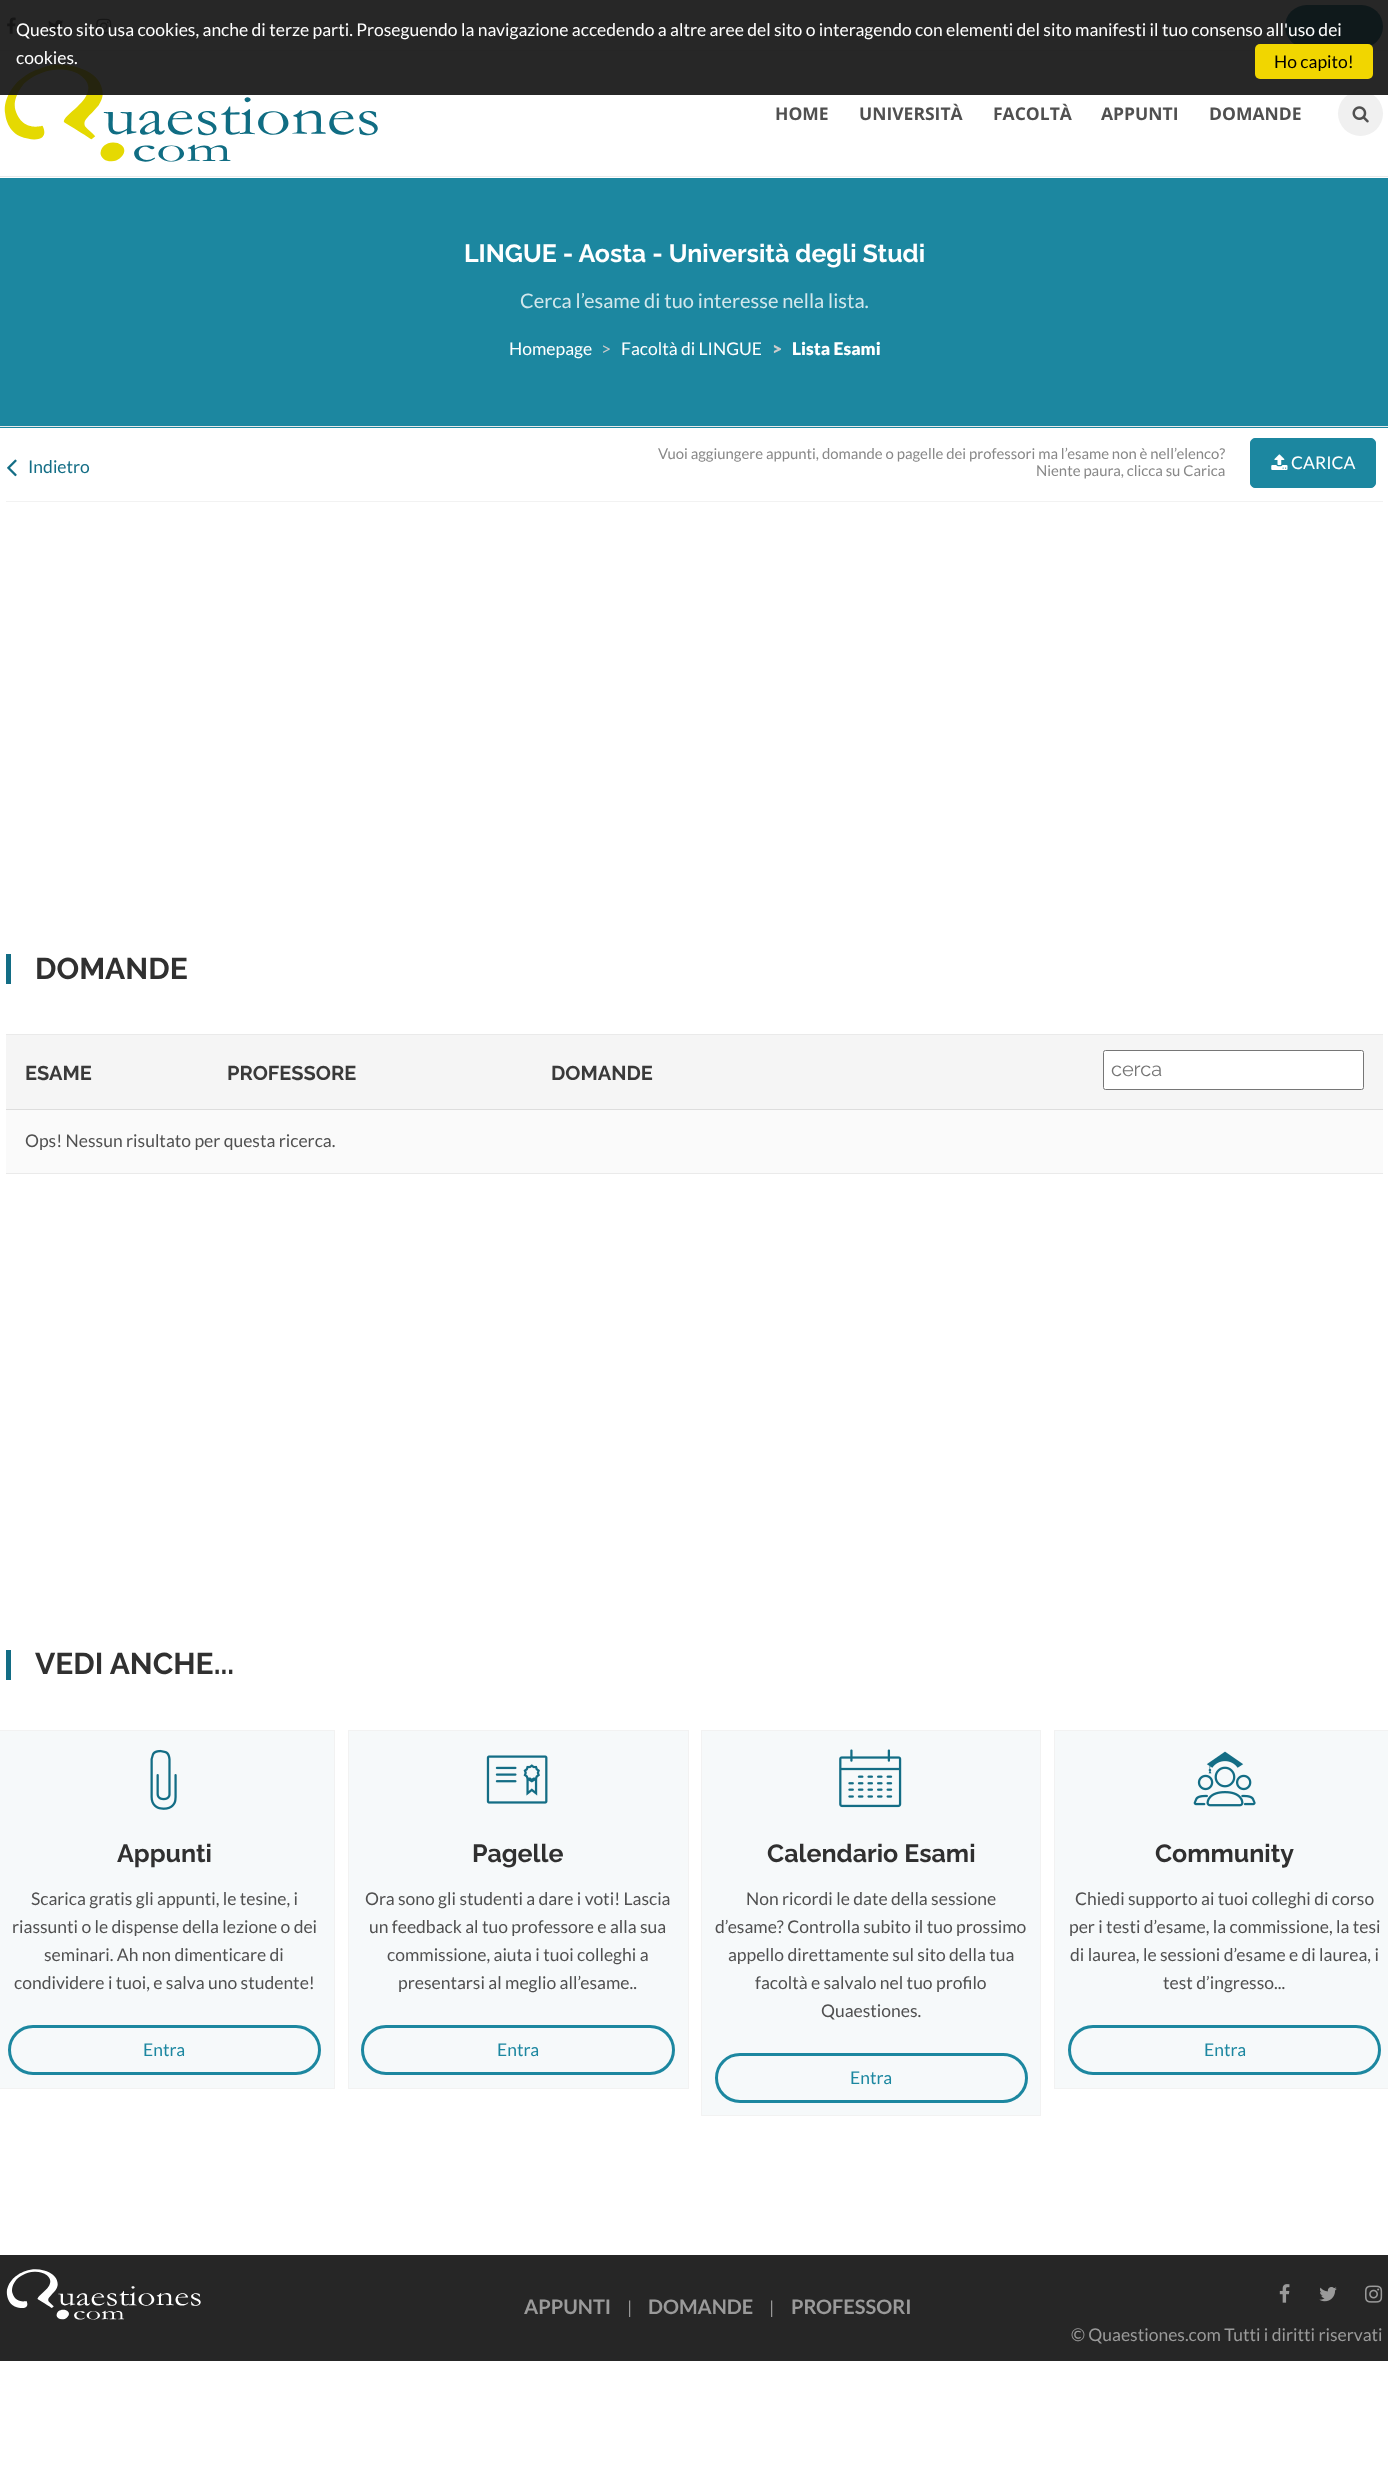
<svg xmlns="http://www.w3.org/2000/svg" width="1388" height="2467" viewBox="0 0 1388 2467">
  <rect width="100%" height="100%" fill="#ffffff"/>
  <rect x="0" y="50" width="1388" height="1" fill="#f2f2f2"/>
  <image x="7" y="17" width="9" height="17" href="img1.png"/>
  <image x="48" y="20" width="16" height="13" href="img2.png"/>
  <image x="96" y="18" width="16" height="16" href="img3.png"/>
  <rect x="1285" y="5" width="98" height="43" rx="21.5" fill="#136d85"/>
  <image x="4" y="64" width="374" height="98" href="img4.png"/>
  <circle cx="1360.5" cy="113.5" r="22.5" fill="#f0f0f0"/>
  <rect x="0" y="0" width="1388" height="95" fill="#101010" fill-opacity="0.9"/>
  <text x="16" y="36" font-family="Lato" font-size="17.5" fill="#ffffff">Questo sito usa cookies, anche di terze parti. Proseguendo la navigazione accedendo a altre aree del sito o interagendo con elementi del sito manifesti il tuo consenso all'uso dei</text>
  <text x="16" y="64" font-family="Lato" font-size="17.5" fill="#ffffff">cookies.</text>
  <rect x="1255" y="44" width="118" height="35" rx="5" fill="#f1d600"/>
  <text x="1274" y="68" font-family="Lato" font-size="17.5" fill="#000000">Ho capito!</text>
  <rect x="0" y="176" width="1388" height="1" fill="#eaeaea"/>
  <text x="775" y="120" font-family="Open Sans" font-size="17.5" font-weight="bold" fill="#505050">HOME</text>
  <text x="859" y="120" font-family="Open Sans" font-size="17.5" font-weight="bold" fill="#505050">UNIVERSITÀ</text>
  <text x="993" y="120" font-family="Open Sans" font-size="17.5" font-weight="bold" fill="#505050">FACOLTÀ</text>
  <text x="1101" y="120" font-family="Open Sans" font-size="17.5" font-weight="bold" fill="#505050">APPUNTI</text>
  <text x="1209" y="120" font-family="Open Sans" font-size="17.5" font-weight="bold" fill="#505050">DOMANDE</text>
  <image x="1352" y="106" width="17" height="17" href="img5.png"/>
  <rect x="0" y="178" width="1388" height="250" fill="#1c87a0"/>
  <rect x="0" y="426" width="1388" height="1" fill="#eaeaea"/>
  <text x="464" y="262" font-family="Raleway" font-size="25" font-weight="bold" fill="#ffffff">LINGUE - Aosta - Università degli Studi</text>
  <text x="520" y="308" font-family="Lato" font-size="20" fill="#d2e7ec">Cerca l’esame di tuo interesse nella lista.</text>
  <text x="509" y="355" font-family="Lato" font-size="17.5" fill="#ffffff">Homepage</text>
  <text x="601" y="355" font-family="Lato" font-size="17.5" fill="#cccccc">&gt;</text>
  <text x="621" y="355" font-family="Lato" font-size="17.5" fill="#ffffff">Facoltà di LINGUE</text>
  <text x="772" y="355" font-family="Lato" font-size="17.5" font-weight="900" fill="#cccccc">&gt;</text>
  <text x="792" y="355" font-family="Lato" font-size="17.5" font-weight="900" fill="#ffffff">Lista Esami</text>
  <rect x="6" y="501" width="1377" height="1" fill="#f2f2f2"/>
  <image x="7" y="459" width="10" height="18" href="img6.png"/>
  <text x="28" y="473" font-family="Lato" font-size="17.5" fill="#136d85">Indietro</text>
  <text x="658" y="459" font-family="Lato" font-size="14.9" fill="#888888">Vuoi aggiungere appunti, domande o pagelle dei professori ma l’esame non è nell’elenco?</text>
  <text x="1036" y="476" font-family="Lato" font-size="14.9" fill="#888888">Niente paura, clicca su Carica</text>
  <rect x="1250.5" y="438.5" width="125" height="49" rx="4.5" fill="#1c87a0" stroke="#1c87a0"/>
  <image x="1271" y="454" width="17" height="16" href="img7.png"/>
  <text x="1291" y="469" font-family="Lato" font-size="17.5" fill="#ffffff">CARICA</text>
  <rect x="6" y="954" width="5" height="30" fill="#136d85"/>
  <text x="35" y="979" font-family="Raleway" font-size="30" font-weight="bold" fill="#303030">DOMANDE</text>
  <rect x="6" y="1034" width="1377" height="1" fill="#eaeaea"/>
  <rect x="6" y="1035" width="1377" height="74" fill="#f5f5f5"/>
  <text x="25" y="1080" font-family="Raleway" font-size="20" font-weight="bold" fill="#3a3a3a">ESAME</text>
  <text x="227" y="1080" font-family="Raleway" font-size="20" font-weight="bold" fill="#3a3a3a">PROFESSORE</text>
  <text x="551" y="1080" font-family="Raleway" font-size="20" font-weight="bold" fill="#3a3a3a">DOMANDE</text>
  <rect x="1103.5" y="1050.5" width="260" height="39" rx="2" fill="#ffffff" stroke="#767676"/>
  <text x="1111" y="1076" font-family="Raleway" font-size="20" fill="#757575">cerca</text>
  <rect x="6" y="1173" width="1377" height="1" fill="#eaeaea"/>
  <rect x="6" y="1110" width="1377" height="63" fill="#fafafa"/>
  <rect x="6" y="1109" width="1377" height="1" fill="#dddddd"/>
  <text x="25" y="1147" font-family="Lato" font-size="17.5" fill="#505050">Ops! Nessun risultato per questa ricerca.</text>
  <rect x="6" y="1650" width="5" height="30" fill="#136d85"/>
  <text x="35" y="1674" font-family="Raleway" font-size="30" font-weight="bold" fill="#303030">VEDI ANCHE...</text>
  <rect x="-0.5" y="1730.5" width="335" height="358" fill="#f6f9fa" stroke="#f2f2f2"/>
  <image x="150" y="1749" width="27" height="61" href="img8.png"/>
  <text x="117" y="1862" font-family="Raleway" font-size="25" font-weight="bold" fill="#303030">Appunti</text>
  <text x="31" y="1905" font-family="Lato" font-size="17.5" fill="#505050">Scarica gratis gli appunti, le tesine, i</text>
  <text x="12" y="1933" font-family="Lato" font-size="17.5" fill="#505050">riassunti o le dispense della lezione o dei</text>
  <text x="44" y="1961" font-family="Lato" font-size="17.5" fill="#505050">seminari. Ah non dimenticare di</text>
  <text x="14" y="1989" font-family="Lato" font-size="17.5" fill="#505050">condividere i tuoi, e salva uno studente!</text>
  <rect x="9.5" y="2026.5" width="310" height="47" rx="23.5" fill="none" stroke="#1c87a0" stroke-width="3"/>
  <text x="143" y="2056" font-family="Lato" font-size="17.5" fill="#1c87a0">Entra</text>
  <rect x="348.5" y="1730.5" width="340" height="358" fill="#f6f9fa" stroke="#f2f2f2"/>
  <image x="486" y="1755" width="62" height="49" href="img9.png"/>
  <text x="472" y="1862" font-family="Raleway" font-size="25" font-weight="bold" fill="#303030">Pagelle</text>
  <text x="365" y="1905" font-family="Lato" font-size="17.5" fill="#505050">Ora sono gli studenti a dare i voti! Lascia</text>
  <text x="369" y="1933" font-family="Lato" font-size="17.5" fill="#505050">un feedback al tuo professore e alla sua</text>
  <text x="387" y="1961" font-family="Lato" font-size="17.5" fill="#505050">commissione, aiuta i tuoi colleghi a</text>
  <text x="398" y="1989" font-family="Lato" font-size="17.5" fill="#505050">presentarsi al meglio all’esame..</text>
  <rect x="362.5" y="2026.5" width="311" height="47" rx="23.5" fill="none" stroke="#1c87a0" stroke-width="3"/>
  <text x="497" y="2056" font-family="Lato" font-size="17.5" fill="#1c87a0">Entra</text>
  <rect x="701.5" y="1730.5" width="339" height="385" fill="#f6f9fa" stroke="#f2f2f2"/>
  <image x="839" y="1749" width="63" height="59" href="img10.png"/>
  <text x="767" y="1862" font-family="Raleway" font-size="25" font-weight="bold" fill="#303030">Calendario Esami</text>
  <text x="746" y="1905" font-family="Lato" font-size="17.5" fill="#505050">Non ricordi le date della sessione</text>
  <text x="715" y="1933" font-family="Lato" font-size="17.5" fill="#505050">d’esame? Controlla subito il tuo prossimo</text>
  <text x="728" y="1961" font-family="Lato" font-size="17.5" fill="#505050">appello direttamente sul sito della tua</text>
  <text x="755" y="1989" font-family="Lato" font-size="17.5" fill="#505050">facoltà e salvalo nel tuo profilo</text>
  <text x="821" y="2017" font-family="Lato" font-size="17.5" fill="#505050">Quaestiones.</text>
  <rect x="716.5" y="2054.5" width="310" height="47" rx="23.5" fill="none" stroke="#1c87a0" stroke-width="3"/>
  <text x="850" y="2084" font-family="Lato" font-size="17.5" fill="#1c87a0">Entra</text>
  <rect x="1054.5" y="1730.5" width="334" height="358" fill="#f6f9fa" stroke="#f2f2f2"/>
  <image x="1193" y="1751" width="63" height="56" href="img11.png"/>
  <text x="1155" y="1862" font-family="Raleway" font-size="25" font-weight="bold" fill="#303030">Community</text>
  <text x="1075" y="1905" font-family="Lato" font-size="17.5" fill="#505050">Chiedi supporto ai tuoi colleghi di corso</text>
  <text x="1069" y="1933" font-family="Lato" font-size="17.5" fill="#505050">per i testi d’esame, la commissione, la tesi</text>
  <text x="1070" y="1961" font-family="Lato" font-size="17.5" fill="#505050">di laurea, le sessioni d’esame e di laurea, i</text>
  <text x="1163" y="1989" font-family="Lato" font-size="17.5" fill="#505050">test d’ingresso...</text>
  <rect x="1069.5" y="2026.5" width="310" height="47" rx="23.5" fill="none" stroke="#1c87a0" stroke-width="3"/>
  <text x="1204" y="2056" font-family="Lato" font-size="17.5" fill="#1c87a0">Entra</text>
  <rect x="0" y="2255" width="1388" height="106" fill="#262626"/>
  <image x="6" y="2269" width="195" height="51" href="img12.png"/>
  <text x="524" y="2314" font-family="Lato" font-size="20" font-weight="bold" fill="#9a9a9a">APPUNTI</text>
  <text x="627" y="2314" font-family="Lato" font-size="17.5" fill="#9a9a9a">|</text>
  <text x="648" y="2314" font-family="Lato" font-size="20" font-weight="bold" fill="#9a9a9a">DOMANDE</text>
  <text x="769" y="2314" font-family="Lato" font-size="17.5" fill="#9a9a9a">|</text>
  <text x="791" y="2314" font-family="Lato" font-size="20" font-weight="bold" fill="#9a9a9a">PROFESSORI</text>
  <image x="1279" y="2284" width="11" height="19" href="img13.png"/>
  <image x="1319" y="2287" width="18" height="15" href="img14.png"/>
  <image x="1365" y="2285" width="18" height="18" href="img15.png"/>
  <text x="1071" y="2341" font-family="Lato" font-size="17.5" fill="#9a9a9a">© Quaestiones.com Tutti i diritti riservati</text>
</svg>
